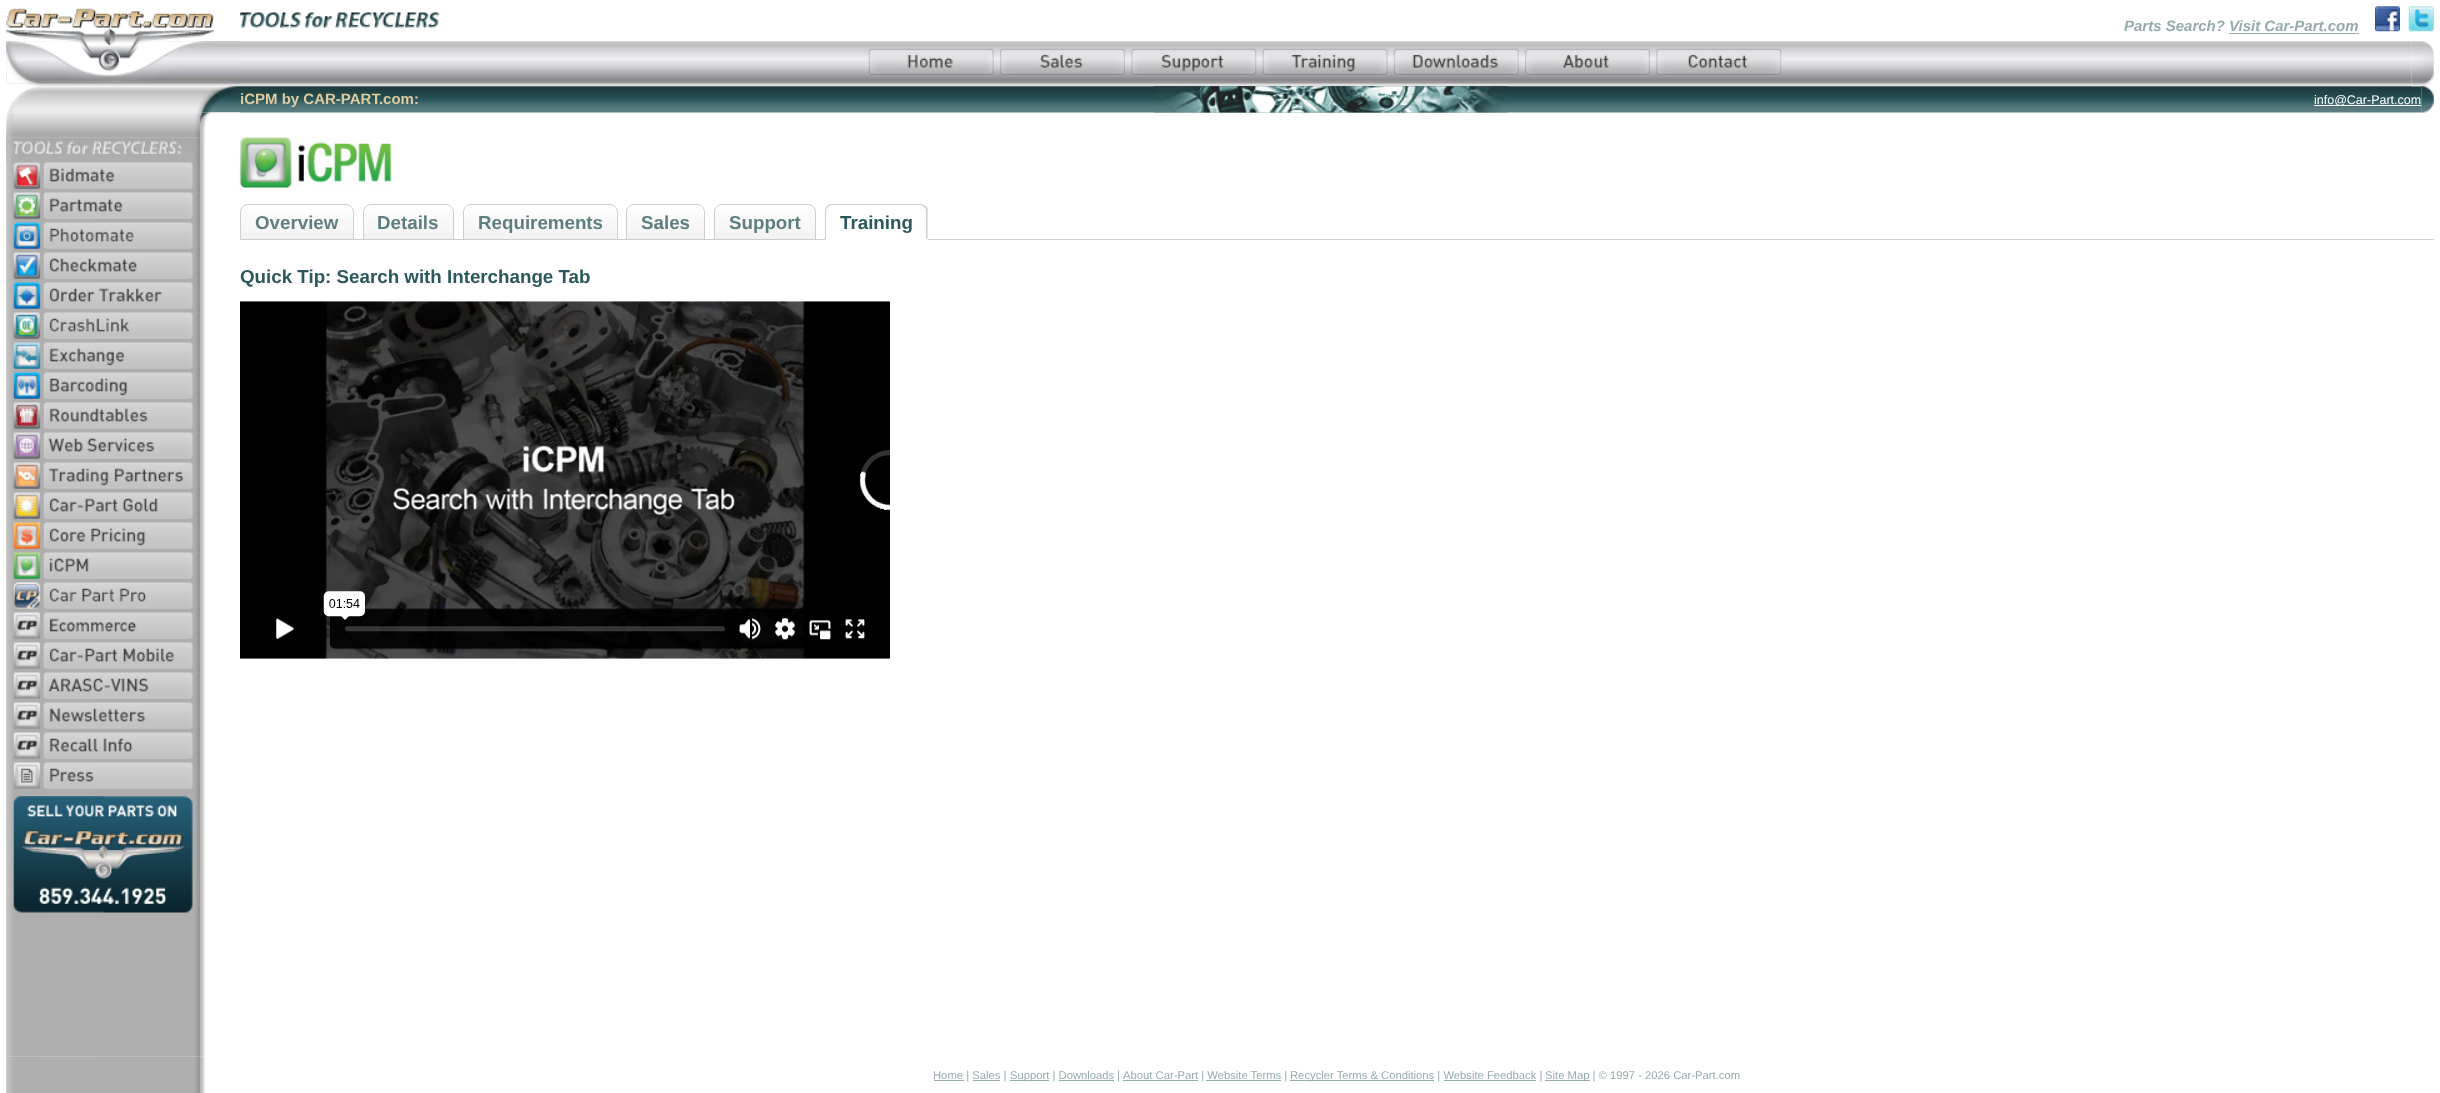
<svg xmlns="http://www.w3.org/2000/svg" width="2440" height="1093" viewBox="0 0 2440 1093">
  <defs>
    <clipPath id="clip1"><path d="M248 204H346C350.5 204 354 207.5 354 212V240H240V212C240 207.5 243.5 204 248 204Z"/></clipPath>
    <linearGradient id="g1" gradientUnits="userSpaceOnUse" x1="297" y1="205" x2="297" y2="239"><stop offset="0" stop-color="#ffffff"/><stop offset="1" stop-color="#f2f2f2"/></linearGradient>
    <clipPath id="clip2"><path d="M371 204H446C450.5 204 454 207.5 454 212V240H363V212C363 207.5 366.5 204 371 204Z"/></clipPath>
    <linearGradient id="g2" gradientUnits="userSpaceOnUse" x1="408" y1="205" x2="408" y2="239"><stop offset="0" stop-color="#ffffff"/><stop offset="1" stop-color="#f2f2f2"/></linearGradient>
    <clipPath id="clip3"><path d="M471 204H610C614.5 204 618 207.5 618 212V240H463V212C463 207.5 466.5 204 471 204Z"/></clipPath>
    <linearGradient id="g3" gradientUnits="userSpaceOnUse" x1="540" y1="205" x2="540" y2="239"><stop offset="0" stop-color="#ffffff"/><stop offset="1" stop-color="#f2f2f2"/></linearGradient>
    <clipPath id="clip4"><path d="M634 204H697C701.5 204 705 207.5 705 212V240H626V212C626 207.5 629.5 204 634 204Z"/></clipPath>
    <linearGradient id="g4" gradientUnits="userSpaceOnUse" x1="666" y1="205" x2="666" y2="239"><stop offset="0" stop-color="#ffffff"/><stop offset="1" stop-color="#f2f2f2"/></linearGradient>
    <clipPath id="clip5"><path d="M722 204H808C812.5 204 816 207.5 816 212V240H714V212C714 207.5 717.5 204 722 204Z"/></clipPath>
    <linearGradient id="g5" gradientUnits="userSpaceOnUse" x1="765" y1="205" x2="765" y2="239"><stop offset="0" stop-color="#ffffff"/><stop offset="1" stop-color="#f2f2f2"/></linearGradient>
  </defs>
  <rect width="100%" height="100%" fill="#ffffff"/>
  <image x="6" y="41" width="234" height="43" href="img5.png"/>
  <image x="6" y="8" width="208" height="34" href="img1.png"/>
  <image x="240" y="12" width="200" height="16" href="img2.png"/>
  <text x="2124" y="31" font-family="Liberation Sans" font-size="15" font-weight="bold" font-style="italic" fill="#95abad">Parts Search? Visit Car-Part.com</text>
  <image x="2375" y="6" width="25" height="26" href="img3.png"/>
  <image x="2408" y="6" width="26" height="26" href="img4.png"/>
  <rect x="2229" y="33" width="130" height="1" fill="#95abad"/>
  <image x="6" y="41" width="234" height="43" href="img6.png"/>
  <image x="240" y="41" width="2172" height="43" href="img7.png"/>
  <image x="868" y="48" width="126" height="27" href="img8.png"/>
  <image x="1000" y="48" width="125" height="27" href="img9.png"/>
  <image x="1131" y="48" width="126" height="27" href="img10.png"/>
  <image x="1262" y="48" width="126" height="27" href="img11.png"/>
  <image x="1393" y="48" width="126" height="27" href="img12.png"/>
  <image x="1525" y="48" width="125" height="27" href="img13.png"/>
  <image x="1656" y="48" width="126" height="27" href="img14.png"/>
  <image x="240" y="83" width="2172" height="4" href="img17.png"/>
  <image x="2411" y="41" width="23" height="43" href="img15.png"/>
  <image x="6" y="83" width="234" height="4" href="img16.png"/>
  <image x="240" y="86" width="2182" height="27" href="img20.png"/>
  <image x="2411" y="83" width="19" height="4" href="img18.png"/>
  <image x="7" y="86" width="233" height="27" href="img19.png"/>
  <text x="240" y="104" font-family="Liberation Sans" font-size="15" font-weight="bold" fill="#decba0">iCPM by CAR-PART.com:</text>
  <image x="1153" y="86" width="355" height="27" href="img21.png"/>
  <rect x="2314" y="105" width="107" height="1" fill="#ffffff"/>
  <text x="2314" y="104" font-family="Liberation Sans" font-size="12.5" fill="#ffffff">info@Car-Part.com</text>
  <image x="2421" y="86" width="13" height="27" href="img22.png"/>
  <image x="6" y="137" width="199" height="920" href="img24.png"/>
  <image x="6" y="112" width="234" height="26" href="img23.png"/>
  <image x="6" y="137" width="198" height="26" href="img25.png"/>
  <image x="13" y="162" width="180" height="27" href="img26.png"/>
  <image x="13" y="192" width="180" height="27" href="img27.png"/>
  <image x="13" y="222" width="180" height="27" href="img28.png"/>
  <image x="13" y="252" width="180" height="27" href="img29.png"/>
  <image x="13" y="282" width="180" height="27" href="img30.png"/>
  <image x="13" y="312" width="180" height="27" href="img31.png"/>
  <image x="13" y="342" width="180" height="27" href="img32.png"/>
  <image x="13" y="372" width="180" height="27" href="img33.png"/>
  <image x="13" y="402" width="180" height="27" href="img34.png"/>
  <image x="13" y="432" width="180" height="27" href="img35.png"/>
  <image x="13" y="462" width="180" height="27" href="img36.png"/>
  <image x="13" y="492" width="180" height="27" href="img37.png"/>
  <image x="13" y="522" width="180" height="27" href="img38.png"/>
  <image x="13" y="552" width="180" height="27" href="img39.png"/>
  <image x="13" y="582" width="180" height="27" href="img40.png"/>
  <image x="13" y="612" width="180" height="27" href="img41.png"/>
  <image x="13" y="642" width="180" height="27" href="img42.png"/>
  <image x="13" y="672" width="180" height="27" href="img43.png"/>
  <image x="13" y="702" width="180" height="27" href="img44.png"/>
  <image x="13" y="732" width="180" height="27" href="img45.png"/>
  <image x="13" y="762" width="180" height="27" href="img46.png"/>
  <image x="13" y="796" width="180" height="117" href="img47.png"/>
  <image x="240" y="137" width="152" height="51" href="img48.png"/>
  <rect x="354" y="239" width="2080" height="1" fill="#cecece"/>
  <g clip-path="url(#clip1)">
    <rect x="240" y="205" width="114" height="34" fill="url(#g1)"/>
  </g>
  <path d="M248 204.5H346C350 204.5 353.5 208 353.5 212V239.5H240.5V212C240.5 208 244 204.5 248 204.5Z" fill="none" stroke="#cecece"/>
  <text x="255" y="229" font-family="Liberation Sans" font-size="18.75" font-weight="bold" fill="#5d7f7f">Overview</text>
  <g clip-path="url(#clip2)">
    <rect x="363" y="205" width="91" height="34" fill="url(#g2)"/>
  </g>
  <path d="M371 204.5H446C450 204.5 453.5 208 453.5 212V239.5H363.5V212C363.5 208 367 204.5 371 204.5Z" fill="none" stroke="#cecece"/>
  <text x="377" y="229" font-family="Liberation Sans" font-size="18.75" font-weight="bold" fill="#5d7f7f">Details</text>
  <g clip-path="url(#clip3)">
    <rect x="463" y="205" width="155" height="34" fill="url(#g3)"/>
  </g>
  <path d="M471 204.5H610C614 204.5 617.5 208 617.5 212V239.5H463.5V212C463.5 208 467 204.5 471 204.5Z" fill="none" stroke="#cecece"/>
  <text x="478" y="229" font-family="Liberation Sans" font-size="18.75" font-weight="bold" fill="#5d7f7f">Requirements</text>
  <g clip-path="url(#clip4)">
    <rect x="626" y="205" width="79" height="34" fill="url(#g4)"/>
  </g>
  <path d="M634 204.5H697C701 204.5 704.5 208 704.5 212V239.5H626.5V212C626.5 208 630 204.5 634 204.5Z" fill="none" stroke="#cecece"/>
  <text x="641" y="229" font-family="Liberation Sans" font-size="18.75" font-weight="bold" fill="#5d7f7f">Sales</text>
  <g clip-path="url(#clip5)">
    <rect x="714" y="205" width="102" height="34" fill="url(#g5)"/>
  </g>
  <path d="M722 204.5H808C812 204.5 815.5 208 815.5 212V239.5H714.5V212C714.5 208 718 204.5 722 204.5Z" fill="none" stroke="#cecece"/>
  <text x="729" y="229" font-family="Liberation Sans" font-size="18.75" font-weight="bold" fill="#5d7f7f">Support</text>
  <path d="M833 204H920C924.5 204 928 207.5 928 212V240H825V212C825 207.5 828.5 204 833 204Z" fill="#ffffff"/>
  <path d="M832 204C830 204 828 205 827 206L828 207L831 205H921L924 207L925 206C924 205 922 204 920 204Z" fill="#cecece"/>
  <path d="M925.5 206C926.5 206.5 927 207.5 927.5 208.5V240L926 238.5V211C926 209.5 925.5 208 924 207Z" fill="#cecece"/>
  <path d="M928 240L926 238V239H826L825 240Z" fill="#ffffff"/>
  <path d="M825 240L826 239V211C826 209.5 827 208 828 207L827 206C826 207 825 209 825 211Z" fill="#cecece"/>
  <text x="840" y="229" font-family="Liberation Sans" font-size="18.75" font-weight="bold" fill="#2b585c">Training</text>
  <text x="240" y="283" font-family="Liberation Sans" font-size="18.75" font-weight="bold" fill="#2b585c">Quick Tip: Search with Interchange Tab</text>
  <image x="240" y="301" width="650" height="358" href="img49.png"/>
  <image x="6" y="1056" width="199" height="37" href="img50.png"/>
  <rect x="934" y="1080" width="30" height="1" fill="#95abad"/>
  <text x="933" y="1079" font-family="Liberation Sans" font-size="11.25" fill="#95abad">Home | Sales |</text>
  <rect x="1010" y="1080" width="39" height="1" fill="#95abad"/>
  <text x="1010" y="1079" font-family="Liberation Sans" font-size="11.25" fill="#95abad">Support | Downloads</text>
  <text x="1117" y="1079" font-family="Liberation Sans" font-size="11.25" fill="#95abad">|</text>
  <rect x="1123" y="1080" width="75" height="1" fill="#95abad"/>
  <text x="1123" y="1079" font-family="Liberation Sans" font-size="11.25" fill="#95abad">About Car-Part | Website Terms |</text>
  <rect x="1290" y="1080" width="144" height="1" fill="#95abad"/>
  <text x="1290" y="1079" font-family="Liberation Sans" font-size="11.25" fill="#95abad">Recycler Terms &amp; Conditions | Website Feedback |</text>
  <rect x="1545" y="1080" width="45" height="1" fill="#95abad"/>
  <text x="1545" y="1079" font-family="Liberation Sans" font-size="11.25" fill="#95abad">Site Map | © 1997 - 2026 Car-Part.com</text>
  <rect x="973" y="1080" width="27" height="1" fill="#95abad"/>
  <rect x="1059" y="1080" width="55" height="1" fill="#95abad"/>
  <rect x="1206" y="1080" width="75" height="1" fill="#95abad"/>
  <rect x="1444" y="1080" width="92" height="1" fill="#95abad"/>
</svg>
